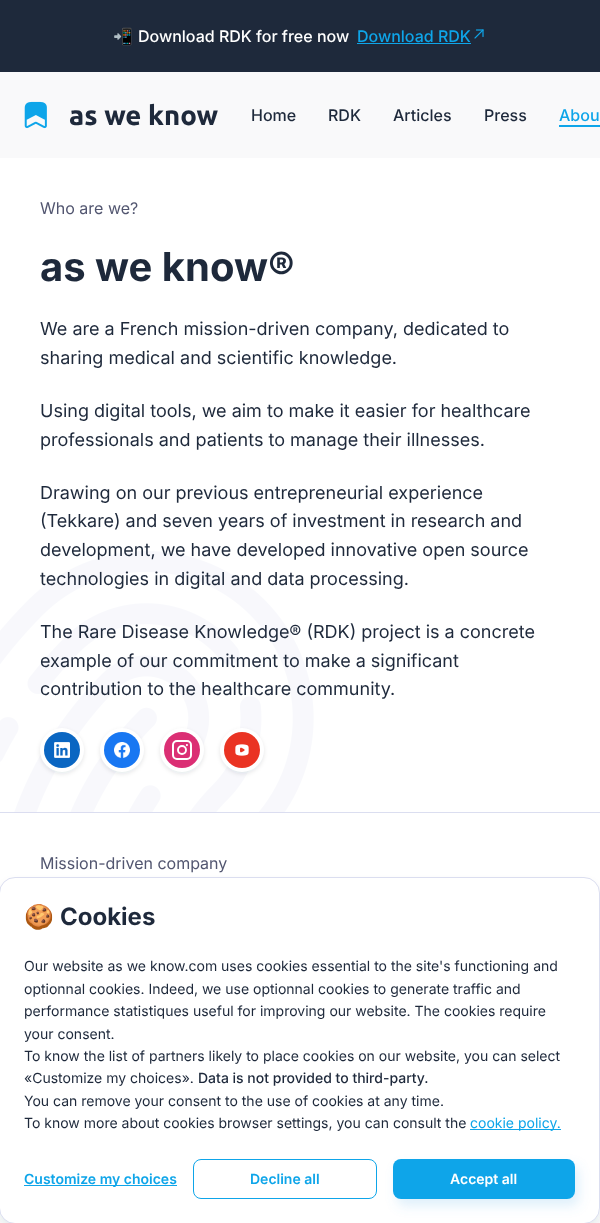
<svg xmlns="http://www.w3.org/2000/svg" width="600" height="1223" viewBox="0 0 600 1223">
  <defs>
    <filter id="blur1" x="-50%" y="-200%" width="200%" height="500%"><feGaussianBlur stdDeviation="2"/></filter>
    <filter id="blur2" x="-50%" y="-200%" width="200%" height="500%"><feGaussianBlur stdDeviation="4"/></filter>
    <filter id="blur3" x="-50%" y="-200%" width="200%" height="500%"><feGaussianBlur stdDeviation="6"/></filter>
  </defs>
  <rect width="100%" height="100%" fill="#ffffff"/>
  <rect x="0" y="0" width="600" height="72" fill="#1e293b"/>
  <text x="113" y="42" font-family="Noto Color Emoji" font-size="16" fill="#ffffff">📲</text>
  <text x="138" y="42" font-family="Inter" font-size="16" font-weight="500" fill="#ffffff">Download RDK for free now</text>
  <text x="357" y="42" font-family="Inter" font-size="16" font-weight="500" fill="#0ea5e9">Download RDK</text>
  <rect x="357" y="43" width="114" height="1" fill="#0ea5e9"/>
  <image x="474" y="29" width="10" height="10" href="img1.png"/>
  <rect x="0" y="72" width="600" height="86" fill="#f9f9fa"/>
  <image x="24" y="101" width="23" height="28" href="img2.png"/>
  <text x="69" y="125" font-family="Ubuntu" font-size="27.5" font-weight="bold" fill="#1e293b">as we know</text>
  <text x="251" y="121" font-family="Inter" font-size="16" font-weight="500" fill="#1e293b">Home</text>
  <text x="328" y="121" font-family="Inter" font-size="16" font-weight="500" fill="#1e293b">RDK</text>
  <text x="393" y="121" font-family="Inter" font-size="16" font-weight="500" fill="#1e293b">Articles</text>
  <text x="484" y="121" font-family="Inter" font-size="16" font-weight="500" fill="#1e293b">Press</text>
  <text x="559" y="121" font-family="Inter" font-size="16" font-weight="500" fill="#0ea5e9">Abou</text>
  <rect x="559" y="125" width="41" height="2" fill="#0ea5e9"/>
  <rect x="0" y="812" width="600" height="1" fill="#dbdef0"/>
  <text x="40" y="214" font-family="Inter" font-size="16" fill="#525670">Who are we?</text>
  <text x="40" y="281" font-family="Inter" font-size="40" font-weight="bold" fill="#1e293b">as we know®</text>
  <text x="40" y="335" font-family="Inter" font-size="18" fill="#1e293b">We are a French mission-driven company, dedicated to</text>
  <text x="40" y="364" font-family="Inter" font-size="18" fill="#1e293b">sharing medical and scientific knowledge.</text>
  <text x="40" y="417" font-family="Inter" font-size="18" fill="#1e293b">Using digital tools, we aim to make it easier for healthcare</text>
  <text x="40" y="446" font-family="Inter" font-size="18" fill="#1e293b">professionals and patients to manage their illnesses.</text>
  <text x="40" y="499" font-family="Inter" font-size="18" fill="#1e293b">Drawing on our previous entrepreneurial experience</text>
  <text x="40" y="527" font-family="Inter" font-size="18" fill="#1e293b">(Tekkare) and seven years of investment in research and</text>
  <image x="0" y="551" width="314" height="262" href="img6.png"/>
  <text x="40" y="556" font-family="Inter" font-size="18" fill="#1e293b">development, we have developed innovative open source</text>
  <text x="40" y="585" font-family="Inter" font-size="18" fill="#1e293b">technologies in digital and data processing.</text>
  <text x="40" y="638" font-family="Inter" font-size="18" fill="#1e293b">The Rare Disease Knowledge® (RDK) project is a concrete</text>
  <text x="40" y="667" font-family="Inter" font-size="18" fill="#1e293b">example of our commitment to make a significant</text>
  <text x="40" y="695" font-family="Inter" font-size="18" fill="#1e293b">contribution to the healthcare community.</text>
  <rect x="40" y="730" width="44" height="44" rx="22" fill="#1e293b" fill-opacity="0.1" filter="url(#blur1)"/>
  <circle cx="62" cy="750" r="22" fill="#ffffff"/>
  <circle cx="62" cy="750" r="18" fill="#0a66c2"/>
  <image x="54" y="742" width="16" height="16" href="img3.png"/>
  <rect x="100" y="730" width="44" height="44" rx="22" fill="#1e293b" fill-opacity="0.1" filter="url(#blur1)"/>
  <circle cx="122" cy="750" r="22" fill="#ffffff"/>
  <circle cx="122" cy="750" r="18" fill="#1877f2"/>
  <image x="114" y="742" width="16" height="16" href="img4.png"/>
  <rect x="160" y="730" width="44" height="44" rx="22" fill="#1e293b" fill-opacity="0.1" filter="url(#blur1)"/>
  <circle cx="182" cy="750" r="22" fill="#ffffff"/>
  <circle cx="182" cy="750" r="18" fill="#db2f74"/>
  <circle cx="182" cy="750" r="4" fill="none" stroke="#ffffff" stroke-width="1.9"/>
  <rect x="173" y="741" width="18" height="18" rx="4" fill="none" stroke="#ffffff" stroke-width="2"/>
  <circle cx="186.9" cy="745.1" r="1.1" fill="#ffffff"/>
  <rect x="220" y="730" width="44" height="44" rx="22" fill="#1e293b" fill-opacity="0.1" filter="url(#blur1)"/>
  <circle cx="242" cy="750" r="22" fill="#ffffff"/>
  <circle cx="242" cy="750" r="18" fill="#ea3323"/>
  <image x="235" y="744" width="14" height="12" href="img5.png"/>
  <text x="40" y="869" font-family="Inter" font-size="16" fill="#525670">Mission-driven company</text>
  <rect x="-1" y="883" width="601" height="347" rx="16" fill="#1e293b" fill-opacity="0.1" filter="url(#blur2)"/>
  <rect x="-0.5" y="877.5" width="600" height="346" rx="15.5" fill="#ffffff" stroke="#dbdef0"/>
  <text x="24" y="925" font-family="Noto Color Emoji" font-size="24" font-weight="bold" fill="#1e293b">🍪</text>
  <text x="60" y="925" font-family="Inter" font-size="24" font-weight="bold" fill="#1e293b">Cookies</text>
  <text x="24" y="971" font-family="Inter" font-size="14" fill="#1e293b">Our website as we know.com uses cookies essential to the site's functioning and</text>
  <text x="24" y="994" font-family="Inter" font-size="14" fill="#1e293b">optionnal cookies. Indeed, we use optionnal cookies to generate traffic and</text>
  <text x="24" y="1016" font-family="Inter" font-size="14" fill="#1e293b">performance statistiques useful for improving our website. The cookies require</text>
  <text x="24" y="1039" font-family="Inter" font-size="14" fill="#1e293b">your consent.</text>
  <text x="24" y="1061" font-family="Inter" font-size="14" fill="#1e293b">To know the list of partners likely to place cookies on our website, you can select</text>
  <text x="24" y="1083" font-family="Inter" font-size="14" fill="#1e293b">«Customize my choices».</text>
  <text x="198" y="1083" font-family="Inter" font-size="14" font-weight="500" fill="#1e293b">Data is not provided to third-party.</text>
  <text x="24" y="1106" font-family="Inter" font-size="14" fill="#1e293b">You can remove your consent to the use of cookies at any time.</text>
  <text x="24" y="1128" font-family="Inter" font-size="14" fill="#1e293b">To know more about cookies browser settings, you can consult the</text>
  <rect x="470" y="1129" width="91" height="1" fill="#0ea5e9"/>
  <text x="470" y="1128" font-family="Inter" font-size="14" fill="#0ea5e9">cookie policy.</text>
  <rect x="24" y="1185" width="153" height="1" fill="#0ea5e9"/>
  <text x="24" y="1184" font-family="Inter" font-size="14" font-weight="600" fill="#0ea5e9">Customize my choices</text>
  <rect x="193.5" y="1159.5" width="183" height="39" rx="7.5" fill="none" stroke="#0ea5e9"/>
  <text x="250" y="1184" font-family="Inter" font-size="14" font-weight="600" fill="#0ea5e9">Decline all</text>
  <rect x="397" y="1166" width="182" height="40" rx="8" fill="#5fb2ed" fill-opacity="0.2" filter="url(#blur3)"/>
  <rect x="393" y="1159" width="182" height="40" rx="8" fill="#0ea5e9"/>
  <text x="450" y="1184" font-family="Inter" font-size="14" font-weight="600" fill="#ffffff">Accept all</text>
</svg>
